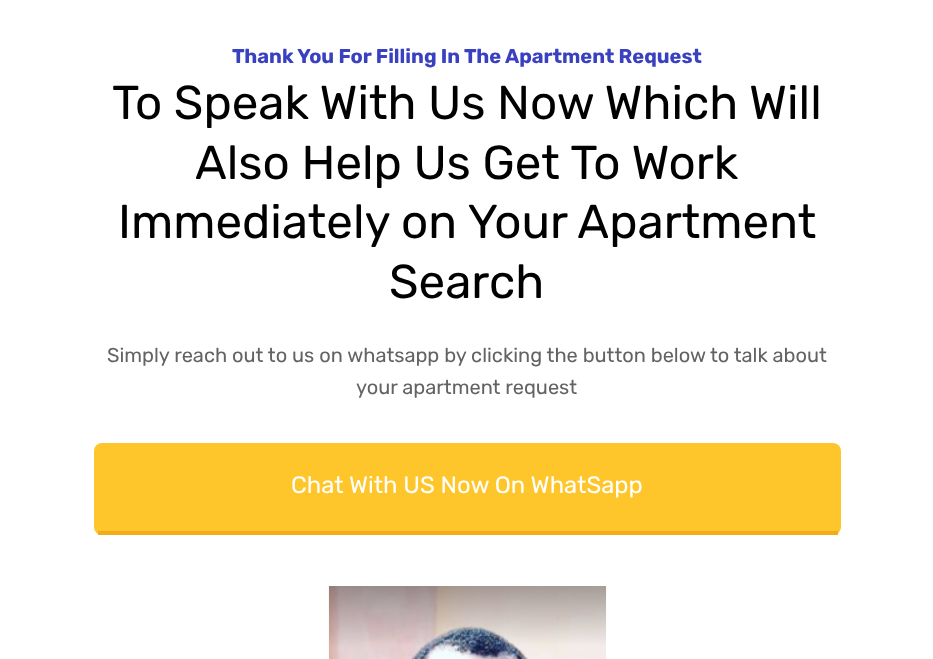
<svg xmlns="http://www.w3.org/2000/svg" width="933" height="659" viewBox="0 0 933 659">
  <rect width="100%" height="100%" fill="#ffffff"/>
  <text x="232" y="63" font-family="Rubik" font-size="20" font-weight="bold" fill="#3941c1">Thank You For Filling In The Apartment Request</text>
  <text x="112" y="119" font-family="Rubik" font-size="47.5" fill="#000000">To Speak With Us Now Which Will</text>
  <text x="195" y="179" font-family="Rubik" font-size="47.5" fill="#000000">Also Help Us Get To Work</text>
  <text x="118" y="238" font-family="Rubik" font-size="47.5" fill="#000000">Immediately on Your Apartment</text>
  <text x="389" y="298" font-family="Rubik" font-size="47.5" fill="#000000">Search</text>
  <text x="107" y="362" font-family="Rubik" font-size="20" fill="#636363">Simply reach out to us on whatsapp by clicking the button below to talk about</text>
  <text x="356" y="394" font-family="Rubik" font-size="20" fill="#636363">your apartment request</text>
  <rect x="94" y="443" width="747" height="92" rx="8" fill="#ffc62b"/>
  <rect x="98" y="531" width="740" height="4" fill="#f2ac1a"/>
  <text x="291" y="493" font-family="Rubik" font-size="23.75" fill="#ffffff">Chat With US Now On WhatSapp</text>
  <image x="328" y="586" width="279" height="73" href="img1.png"/>
</svg>
